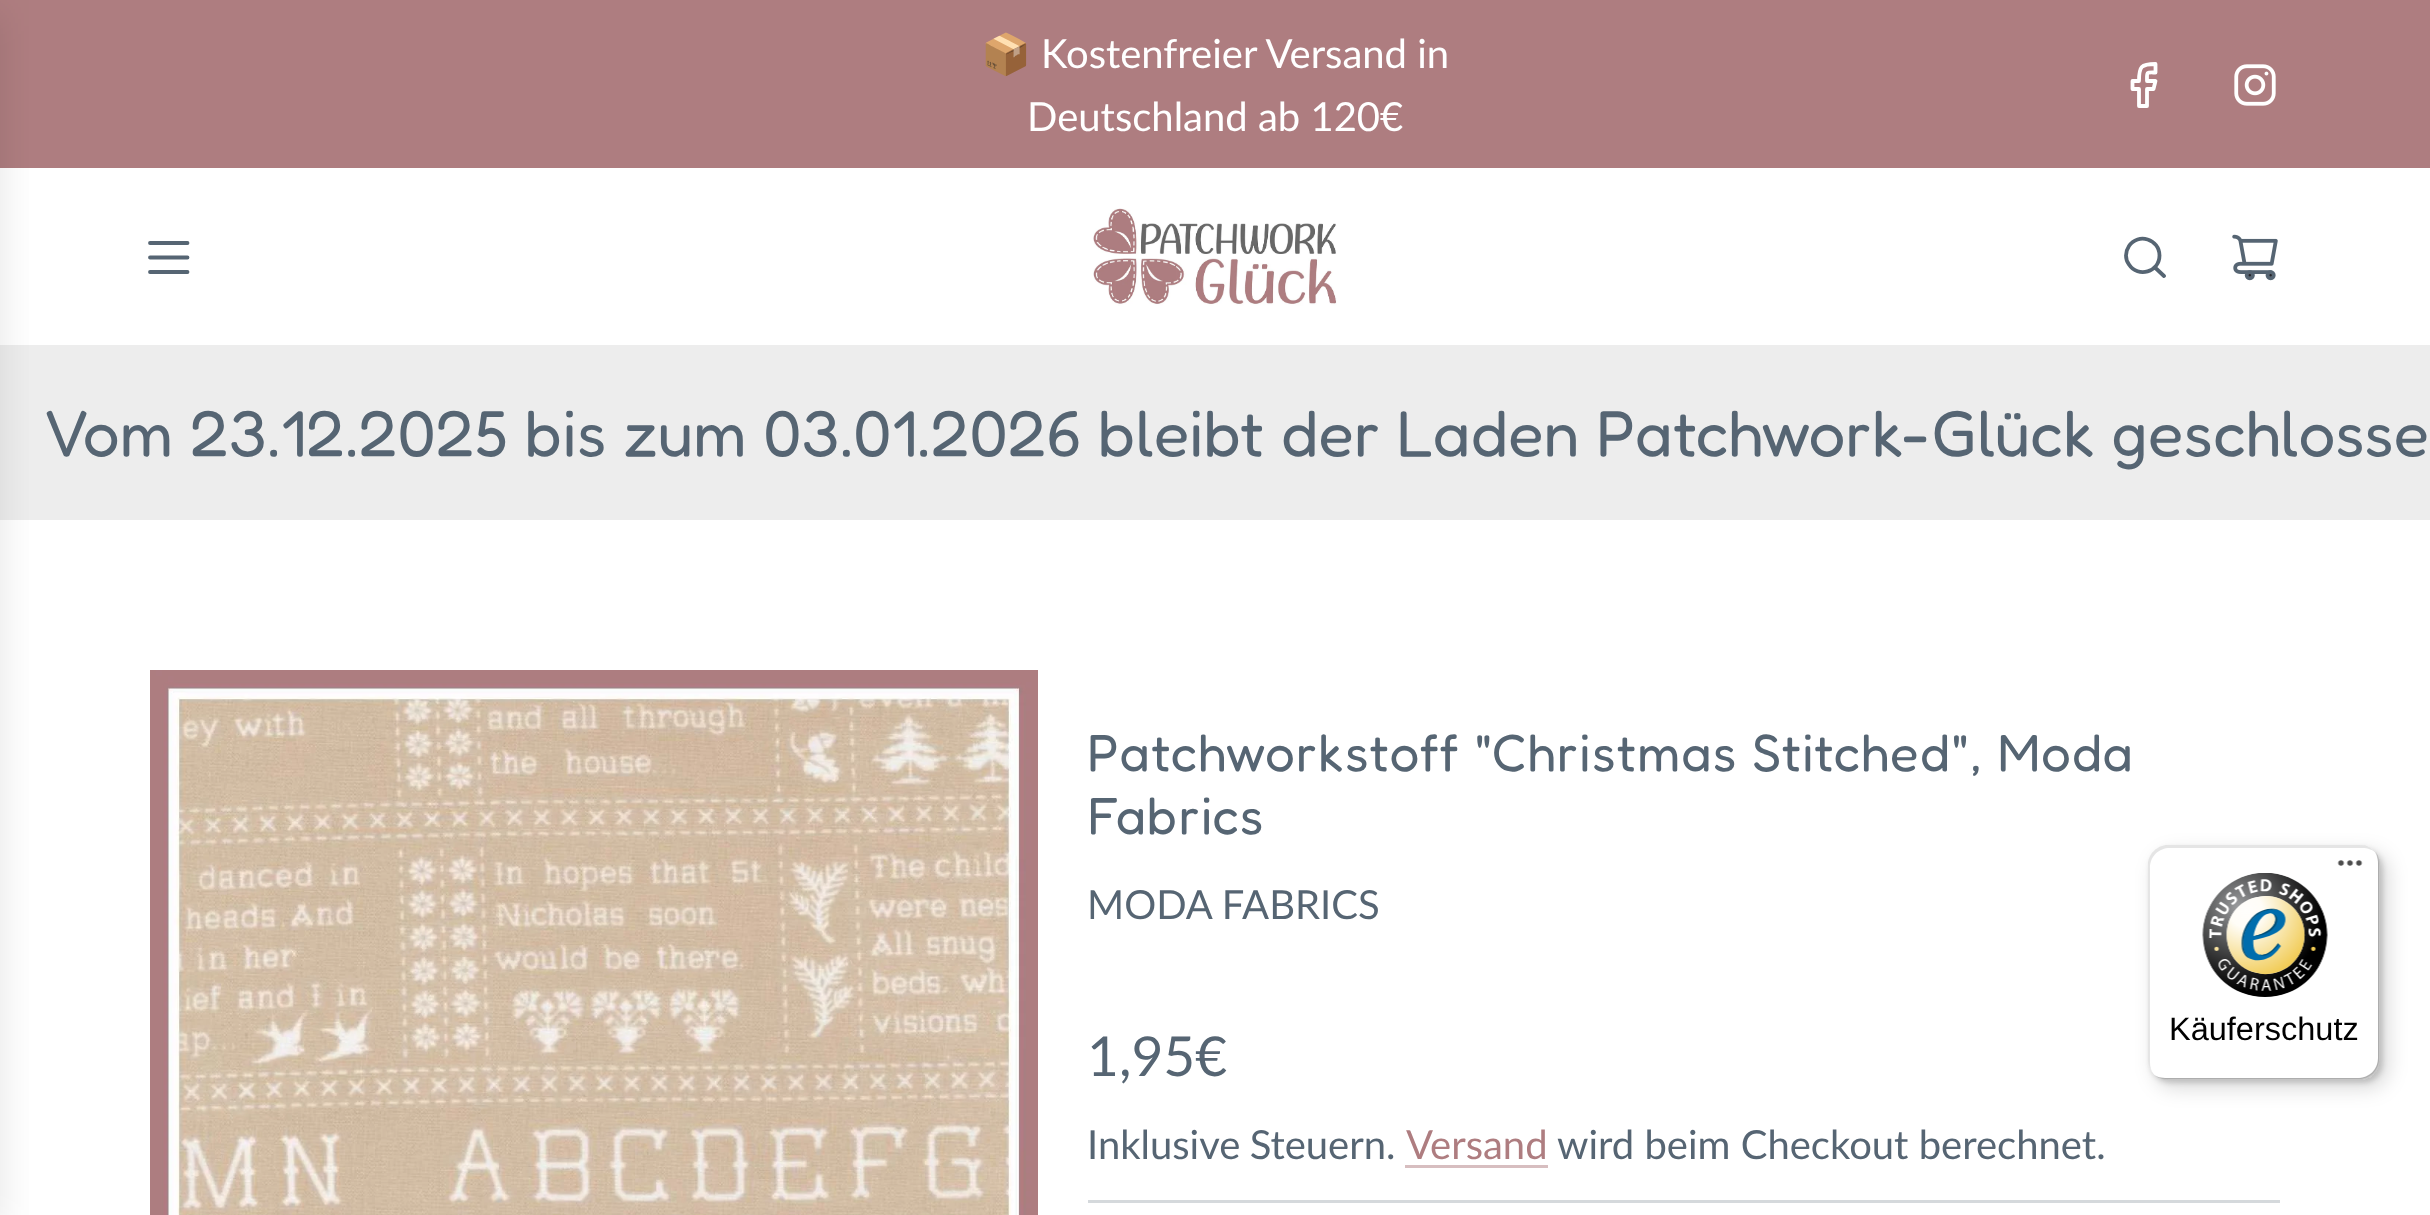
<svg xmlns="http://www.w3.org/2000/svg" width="2430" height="1215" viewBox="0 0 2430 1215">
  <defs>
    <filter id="blur1" x="-50%" y="-200%" width="200%" height="500%"><feGaussianBlur stdDeviation="19"/></filter>
    <filter id="blur2" x="-50%" y="-200%" width="200%" height="500%"><feGaussianBlur stdDeviation="10"/></filter>
    <filter id="blur3" x="-50%" y="-200%" width="200%" height="500%"><feGaussianBlur stdDeviation="2.5"/></filter>
  </defs>
  <rect width="100%" height="100%" fill="#ffffff"/>
  <rect x="0" y="0" width="2430" height="168" fill="#ae7d80"/>
  <rect x="0" y="345" width="2430" height="175" fill="#ededed"/>
  <rect x="-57" y="13" width="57" height="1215" fill="#000000" fill-opacity="0.1" filter="url(#blur1)"/>
  <path d="M150 243H187.5M150 257.5H187.5M150 272H187.5" fill="none" stroke="#566573" stroke-width="3.8" stroke-linecap="round" stroke-linejoin="round"/>
  <image x="1093" y="208" width="244" height="98" href="img1.png"/>
  <path d="M2155.5 268L2164 276M2126 255.5C2126 258.5 2127 262 2129 264.5C2138 278.5 2159.5 272 2159.5 255.5C2159.5 239 2138 232.5 2129 246C2127 249 2126 252 2126 255.5Z" fill="none" stroke="#566573" stroke-width="3.8" stroke-linecap="round" stroke-linejoin="round"/>
  <image x="2232" y="234" width="46" height="47" href="img2.png"/>
  <text x="981" y="68" font-family="Noto Color Emoji" font-size="40" fill="#ffffff">📦</text>
  <text x="1041" y="68" font-family="Lato" font-size="40" fill="#ffffff">Kostenfreier Versand in</text>
  <text x="1027" y="131" font-family="Lato" font-size="40" fill="#ffffff">Deutschland ab 120€</text>
  <path d="M2155.5 64C2141 64 2139 66.5 2139 81H2132.5V89H2139V106H2147V89H2153.5L2155.5 81H2147C2147 71.5 2146 72.5 2155.5 72.5Z" fill="none" stroke="#ffffff" stroke-width="3.8" stroke-linecap="round" stroke-linejoin="round"/>
  <image x="2234" y="64" width="42" height="42" href="img3.png"/>
  <text x="43" y="456" font-family="Fredoka" font-size="65" fill="#566573">Vom 23.12.2025 bis zum 03.01.2026 bleibt der Laden Patchwork-Glück geschlosse</text>
  <image x="150" y="670" width="888" height="545" href="img4.png"/>
  <text x="1087" y="771" font-family="Fredoka" font-size="52.5" letter-spacing="1.05" fill="#566573">Patchworkstoff "Christmas Stitched", Moda</text>
  <text x="1087" y="834" font-family="Fredoka" font-size="52.5" letter-spacing="1.05" fill="#566573">Fabrics</text>
  <text x="1087" y="919" font-family="Lato" font-size="40" fill="#566573">MODA FABRICS</text>
  <text x="1087" y="1076" font-family="Lato" font-size="55" fill="#566573">1,95€</text>
  <text x="1087" y="1159" word-spacing="-1" font-family="Lato" font-size="40" fill="#566573">Inklusive Steuern.</text>
  <text x="1406" y="1159" font-family="Lato" font-size="40" fill="#ae7d80">Versand</text>
  <rect x="1405" y="1165" width="143" height="3" fill="#d7bec0"/>
  <text x="1557" y="1159" font-family="Lato" font-size="40" fill="#566573">wird beim Checkout berechnet.</text>
  <rect x="1088" y="1200" width="1192" height="3" fill="#d5d9dc"/>
  <rect x="2155" y="853" width="233" height="235" rx="20" fill="#000000" fill-opacity="0.15" filter="url(#blur2)"/>
  <rect x="2150" y="848" width="233" height="235" rx="20" fill="#000000" fill-opacity="0.15" filter="url(#blur3)"/>
  <rect x="2148" y="845" width="232" height="235" rx="20" fill="#ffffff"/>
  <path d="M2170 848H2362C2368 848 2373 850 2376 853C2372 848 2367 845 2360 845H2168C2157 845 2148 854 2148 865V1060C2148 1065 2150 1070 2154 1074C2151 1071 2150 1067 2150 1062V868C2150 856 2159 848 2170 848Z" fill="#000000" fill-opacity="0.1"/>
  <path d="M2155 1076C2159 1078 2163 1080 2168 1080H2360C2371 1080 2380 1071 2380 1060V865C2380 860 2378 856 2376 852C2377 855 2378 859 2378 862V1058C2378 1069 2369 1078 2358 1078H2165C2162 1078 2158 1077 2155 1076Z" fill="#000000" fill-opacity="0.2"/>
  <path d="M2154 1074C2158 1078 2163 1080 2168 1080H2360C2371 1080 2380 1071 2380 1060V865C2380 858 2377 853 2372 849C2376 852 2378 858 2378 864V1058C2378 1070 2370 1078 2358 1078H2166C2161 1078 2157 1077 2154 1074Z" fill="#323232" fill-opacity="0.2"/>
  <path d="M2158 1077C2161 1079 2164 1080 2168 1080H2360C2371 1080 2380 1071 2380 1060V865C2380 859 2377 854 2373 850C2377 854 2379 859 2379 864V1059C2379 1070 2370 1079 2359 1079H2166C2163 1079 2160 1078 2158 1077Z" fill="#ffffff" fill-opacity="0.3"/>
  <image x="2337" y="860" width="26" height="6" href="img5.png"/>
  <image x="2202" y="873" width="126" height="124" href="img6.png"/>
  <text x="2169" y="1040" font-family="Liberation Sans" font-size="32.5" fill="#000000">Käuferschutz</text>
</svg>
